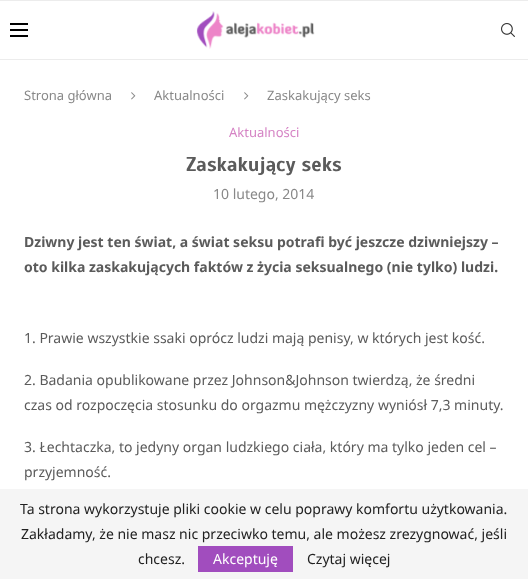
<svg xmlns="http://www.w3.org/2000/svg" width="528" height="579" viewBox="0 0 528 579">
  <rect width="100%" height="100%" fill="#ffffff"/>
  <rect x="0" y="0" width="528" height="1" fill="#ececec"/>
  <rect x="0" y="59" width="528" height="1" fill="#ececec"/>
  <rect x="10" y="23" width="18" height="2" fill="#000000"/>
  <rect x="10" y="29" width="18" height="2" fill="#000000"/>
  <rect x="10" y="35" width="18" height="2" fill="#000000"/>
  <image x="196" y="11" width="119" height="38" href="img1.png"/>
  <image x="501" y="23" width="14" height="14" href="img2.png"/>
  <text x="24" y="100" font-family="Noto Sans" font-size="13" fill="#888888">Strona główna</text>
  <image x="131" y="92" width="5" height="8" href="img3.png"/>
  <text x="154" y="100" font-family="Noto Sans" font-size="13" fill="#888888">Aktualności</text>
  <image x="244" y="92" width="5" height="8" href="img3.png"/>
  <text x="267" y="100" font-family="Noto Sans" font-size="13" fill="#888888">Zaskakujący seks</text>
  <text x="229" y="137" font-family="Noto Sans" font-size="13" fill="#d583c4">Aktualności</text>
  <text x="186" y="171" font-family="Scada" font-size="20" font-weight="bold" fill="#5b5b5b">Zaskakujący seks</text>
  <text x="213" y="199" font-family="Noto Sans" font-size="14" fill="#888888">10 lutego, 2014</text>
  <text x="24" y="247" font-family="Noto Sans" font-size="14" font-weight="bold" fill="#5b5b5b">Dziwny jest ten świat, a świat seksu potrafi być jeszcze dziwniejszy –</text>
  <text x="24" y="272" font-family="Noto Sans" font-size="14" font-weight="bold" fill="#5b5b5b">oto kilka zaskakujących faktów z życia seksualnego (nie tylko) ludzi.</text>
  <text x="24" y="343" font-family="Noto Sans" font-size="14" fill="#5b5b5b">1. Prawie wszystkie ssaki oprócz ludzi mają penisy, w których jest kość.</text>
  <text x="24" y="385" font-family="Noto Sans" font-size="14" fill="#5b5b5b">2. Badania opublikowane przez Johnson&amp;Johnson twierdzą, że średni</text>
  <text x="24" y="410" font-family="Noto Sans" font-size="14" fill="#5b5b5b">czas od rozpoczęcia stosunku do orgazmu mężczyzny wyniósł 7,3 minuty.</text>
  <text x="24" y="452" font-family="Noto Sans" font-size="14" fill="#5b5b5b">3. Łechtaczka, to jedyny organ ludzkiego ciała, który ma tylko jeden cel –</text>
  <text x="24" y="477" font-family="Noto Sans" font-size="14" fill="#5b5b5b">przyjemność.</text>
  <rect x="0" y="489" width="528" height="90" fill="#f5f5f5"/>
  <text x="20" y="514" font-family="Noto Sans" font-size="14" fill="#212121">Ta strona wykorzystuje pliki cookie w celu poprawy komfortu użytkowania.</text>
  <text x="21" y="539" font-family="Noto Sans" font-size="14" fill="#212121">Zakładamy, że nie masz nic przeciwko temu, ale możesz zrezygnować, jeśli</text>
  <text x="138" y="564" font-family="Noto Sans" font-size="14" fill="#212121">chcesz.</text>
  <rect x="198" y="546" width="95" height="26" fill="#a14dbe"/>
  <text x="213" y="564" font-family="Noto Sans" font-size="14" fill="#ffffff">Akceptuję</text>
  <text x="307" y="564" font-family="Noto Sans" font-size="14" fill="#212121">Czytaj więcej</text>
</svg>
